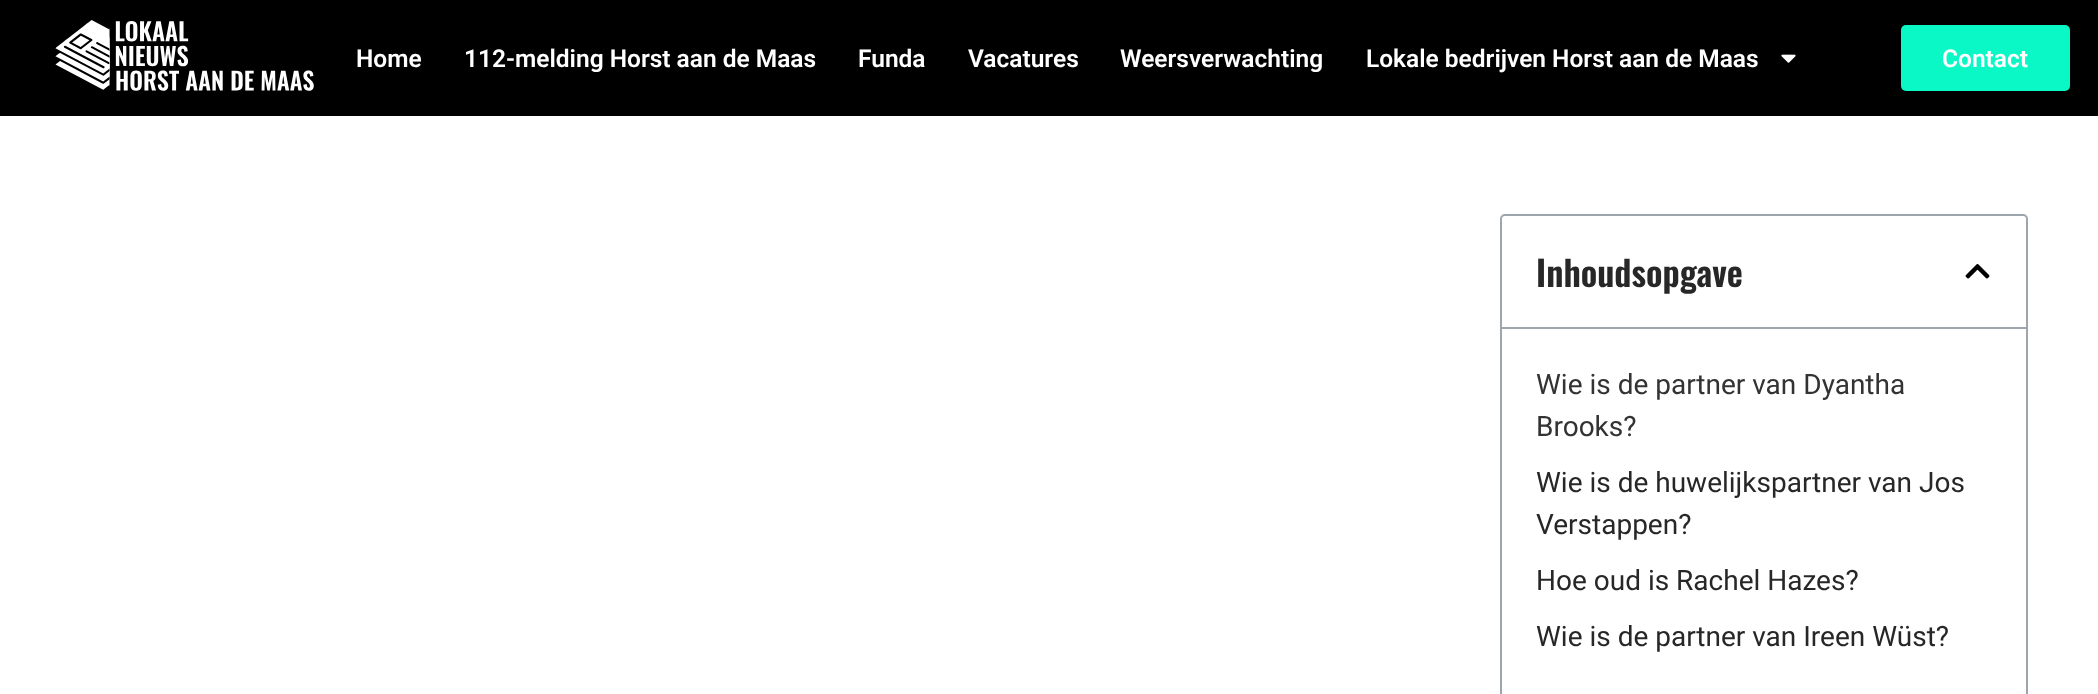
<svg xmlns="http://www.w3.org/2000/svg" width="2098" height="694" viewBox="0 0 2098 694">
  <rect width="100%" height="100%" fill="#ffffff"/>
  <rect x="0" y="0" width="2098" height="116" fill="#000000"/>
  <image x="55" y="20" width="259" height="71" href="img1.png"/>
  <text x="356" y="67" font-family="Roboto" font-size="24.5" font-weight="600" fill="#ffffff">Home</text>
  <text x="464" y="67" font-family="Roboto" font-size="24.5" font-weight="600" fill="#ffffff">112-melding Horst aan de Maas</text>
  <text x="858" y="67" font-family="Roboto" font-size="24.5" font-weight="600" fill="#ffffff">Funda</text>
  <text x="968" y="67" font-family="Roboto" font-size="24.5" font-weight="600" fill="#ffffff">Vacatures</text>
  <text x="1120" y="67" font-family="Roboto" font-size="24.5" font-weight="600" fill="#ffffff">Weersverwachting</text>
  <text x="1366" y="67" font-family="Roboto" font-size="24.5" font-weight="600" fill="#ffffff">Lokale bedrijven Horst aan de Maas</text>
  <image x="1781" y="54" width="15" height="9" href="img2.png"/>
  <rect x="1901" y="25" width="169" height="66" rx="5" fill="#0af8c5"/>
  <text x="1942" y="67" font-family="Roboto" font-size="24.5" font-weight="600" fill="#ffffff">Contact</text>
  <rect x="1501" y="215" width="526" height="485" rx="4" fill="none" stroke="#9da5ae" stroke-width="2"/>
  <rect x="1502" y="327" width="525" height="2" fill="#9da5ae"/>
  <text x="1536" y="287" font-family="Oswald" font-size="35" font-weight="600" fill="#272727">Inhoudsopgave</text>
  <image x="1965" y="264" width="25" height="15" href="img3.png"/>
  <text x="1536" y="394" font-family="Roboto" font-size="28" fill="#333333">Wie is de partner van Dyantha</text>
  <text x="1536" y="436" font-family="Roboto" font-size="28" fill="#333333">Brooks?</text>
  <text x="1536" y="492" font-family="Roboto" font-size="28" fill="#272727">Wie is de huwelijkspartner van Jos</text>
  <text x="1536" y="534" font-family="Roboto" font-size="28" fill="#272727">Verstappen?</text>
  <text x="1536" y="590" font-family="Roboto" font-size="28" fill="#272727">Hoe oud is Rachel Hazes?</text>
  <text x="1536" y="646" font-family="Roboto" font-size="28" fill="#272727">Wie is de partner van Ireen Wüst?</text>
</svg>
